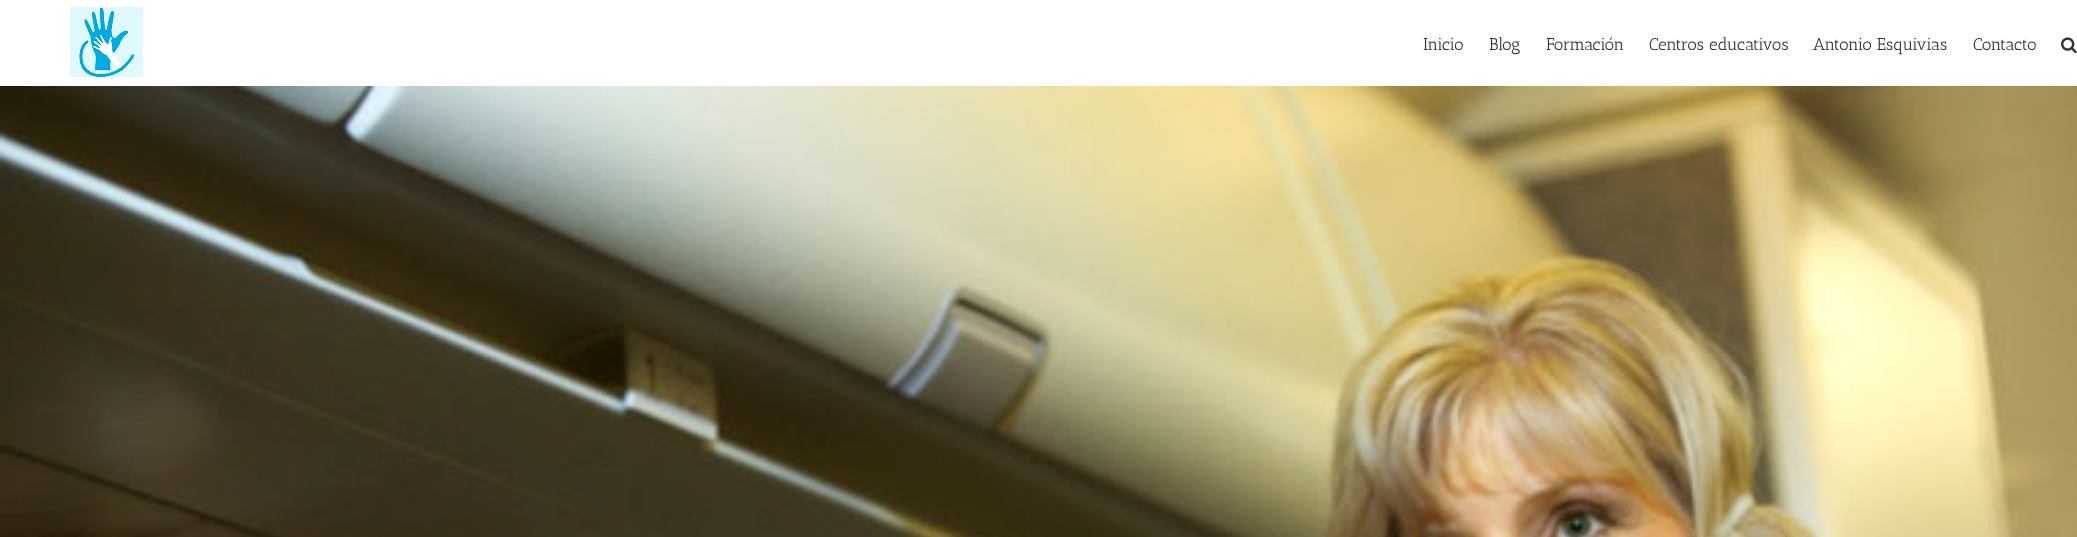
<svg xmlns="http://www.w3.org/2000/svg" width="2077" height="537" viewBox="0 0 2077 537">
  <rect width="100%" height="100%" fill="#ffffff"/>
  <image x="70" y="7" width="73" height="70" href="img1.png"/>
  <text x="1423" y="50" font-family="Antic Slab" font-size="17" fill="#333333">Inicio</text>
  <text x="1489" y="50" font-family="Antic Slab" font-size="17" fill="#333333">Blog</text>
  <text x="1546" y="50" font-family="Antic Slab" font-size="17" fill="#333333">Formación</text>
  <text x="1649" y="50" font-family="Antic Slab" font-size="17" fill="#333333">Centros educativos</text>
  <text x="1813" y="50" font-family="Antic Slab" font-size="17" fill="#333333">Antonio Esquivias</text>
  <text x="1973" y="50" font-family="Antic Slab" font-size="17" fill="#333333">Contacto</text>
  <image x="2061" y="37" width="16" height="17" href="img2.png"/>
  <image x="0" y="86" width="2077" height="451" href="img3.png"/>
</svg>
